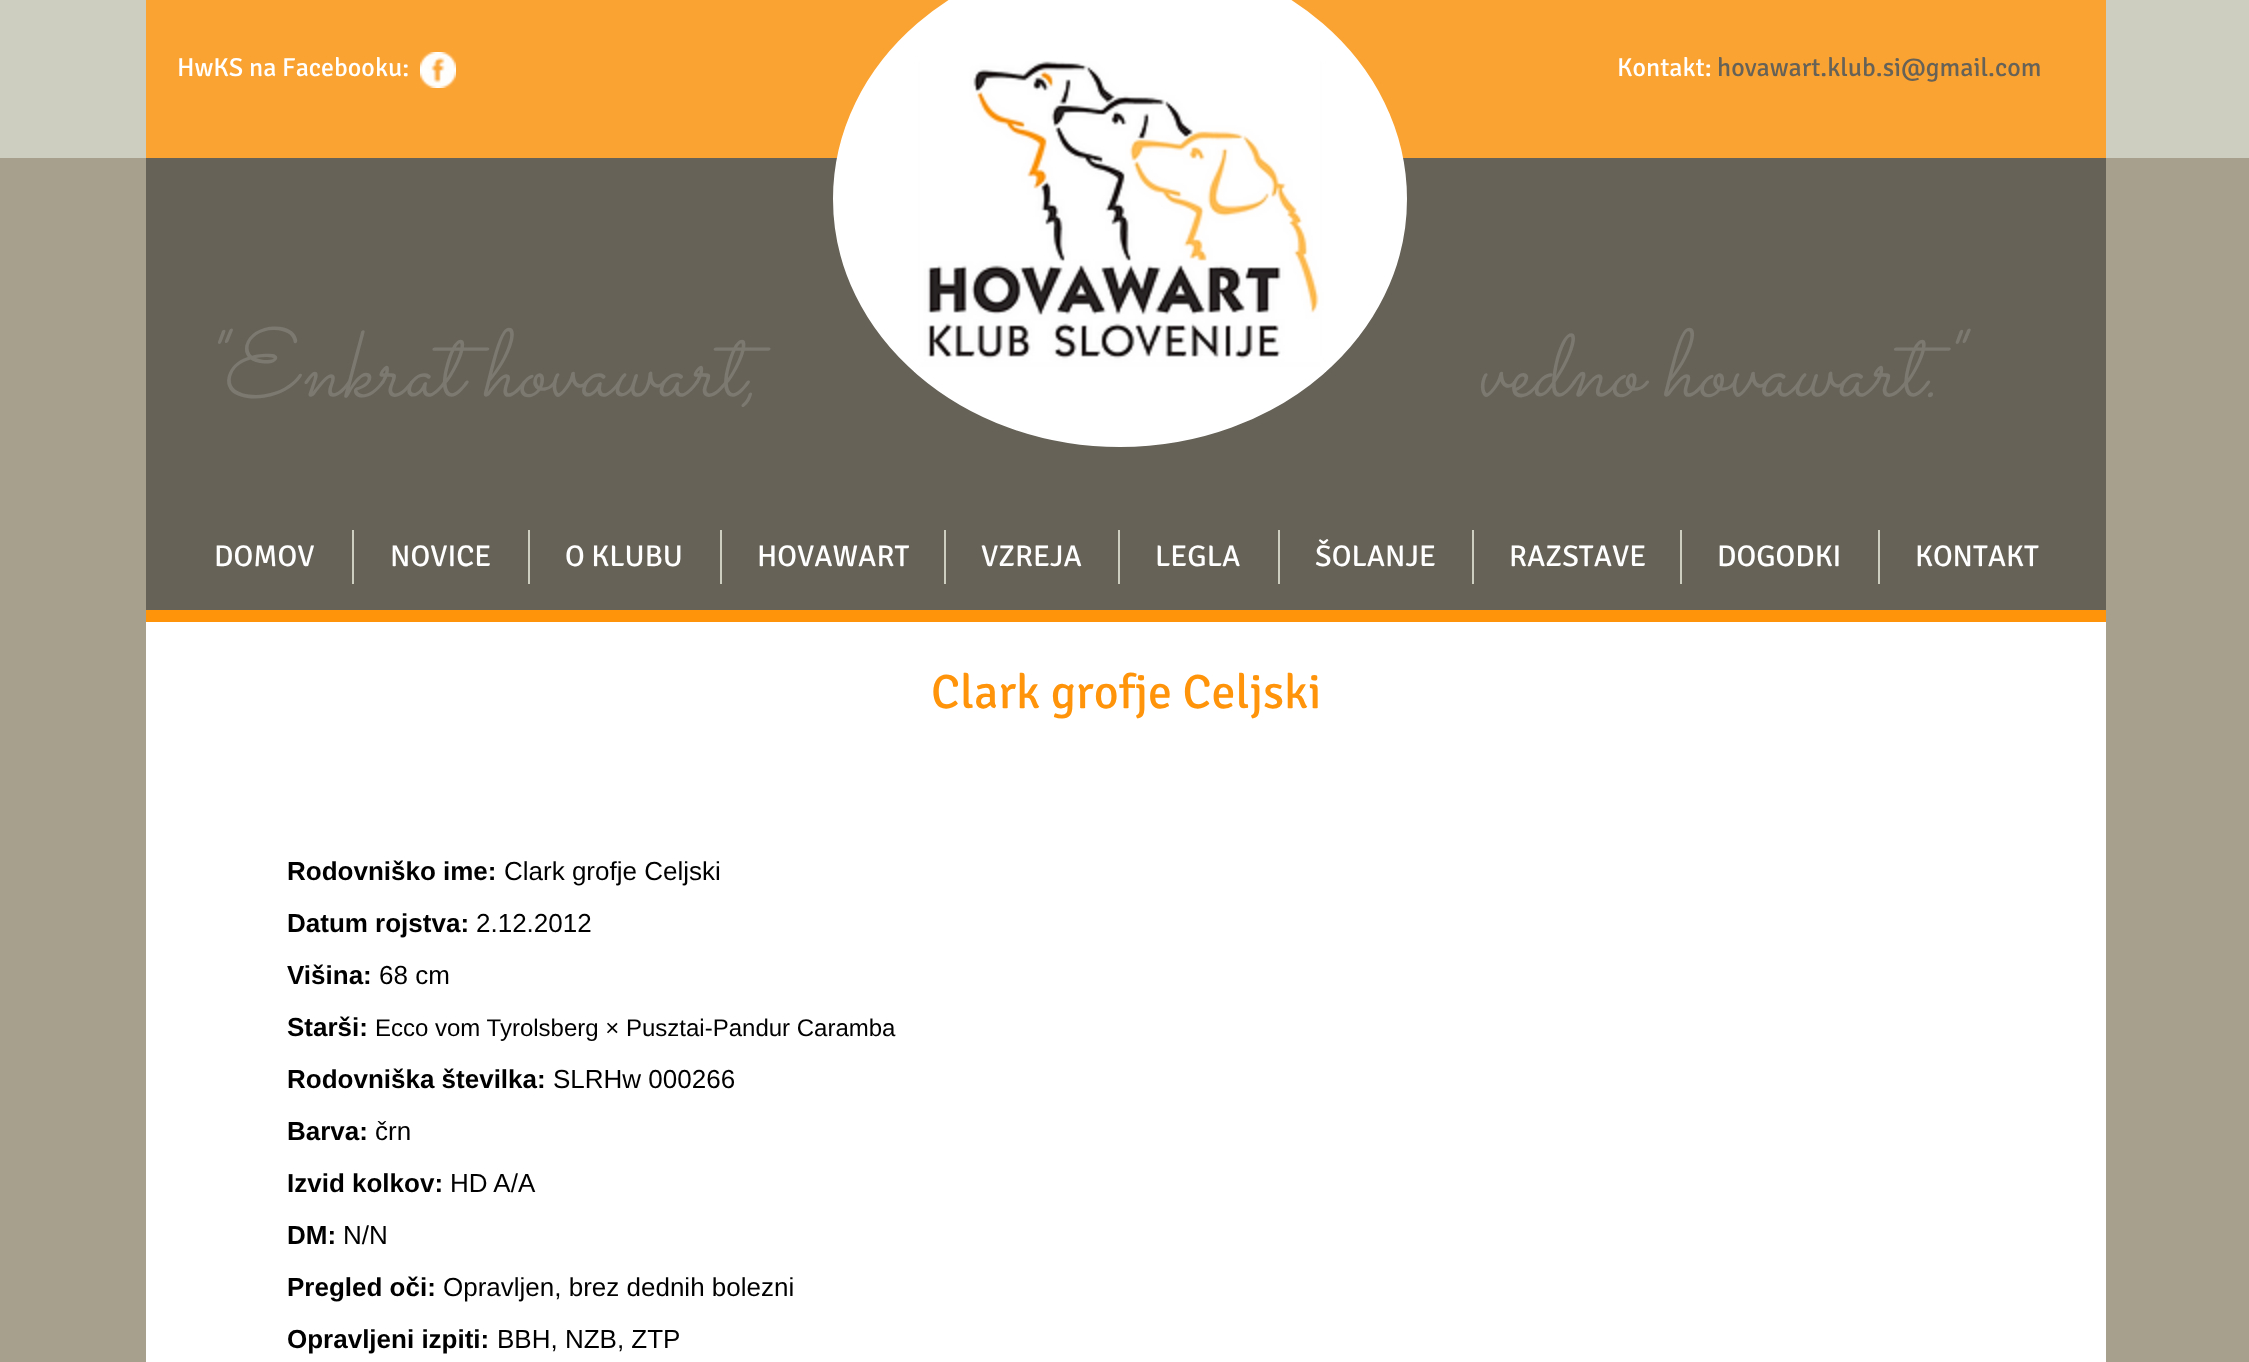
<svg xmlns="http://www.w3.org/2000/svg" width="2249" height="1362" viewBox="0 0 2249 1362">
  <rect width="100%" height="100%" fill="#a7a08c"/>
  <rect x="0" y="0" width="2249" height="158" fill="#cecec0"/>
  <rect x="146" y="0" width="1960" height="158" fill="#fba332"/>
  <text x="177" y="76" font-family="Signika" font-size="26" fill="#ffffff">HwKS na Facebooku:</text>
  <image x="420" y="52" width="36" height="36" href="img1.png"/>
  <text x="1617" y="76" font-family="Signika" font-size="26" fill="#ffffff">Kontakt:</text>
  <text x="1717" y="76" font-family="Signika" font-size="26" fill="#666258">hovawart.klub.si@gmail.com</text>
  <rect x="146" y="158" width="1960" height="452" fill="#666258"/>
  <path d="M1406 199C1406 335 1278 446 1120 446C962 446 834 335 834 199C834 63 962-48 1120-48C1278-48 1406 63 1406 199Z" fill="#ffffff"/>
  <path d="M1406 199C1406 335.5 1278 446 1120 446C962 446 834 335.5 834 199C834 62.5 962-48 1120-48C1278-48 1406 62.5 1406 199Z" fill="none" stroke="#ffffff" stroke-width="2"/>
  <image x="914" y="61" width="412" height="311" href="img2.png"/>
  <text x="201" y="396" font-family="Sacramento" font-size="96" font-style="italic" fill="#7c7971" xml:space="preserve">"Enkrat hovawart,                                  vedno hovawart."</text>
  <text x="214" y="566" font-family="Signika" font-size="30" fill="#ffffff">DOMOV</text>
  <rect x="352" y="530" width="2" height="54" fill="#cecec0"/>
  <text x="390" y="566" font-family="Signika" font-size="30" fill="#ffffff">NOVICE</text>
  <rect x="528" y="530" width="2" height="54" fill="#cecec0"/>
  <text x="565" y="566" font-family="Signika" font-size="30" fill="#ffffff">O KLUBU</text>
  <rect x="720" y="530" width="2" height="54" fill="#cecec0"/>
  <text x="757" y="566" font-family="Signika" font-size="30" fill="#ffffff">HOVAWART</text>
  <rect x="944" y="530" width="2" height="54" fill="#cecec0"/>
  <text x="981" y="566" font-family="Signika" font-size="30" fill="#ffffff">VZREJA</text>
  <rect x="1118" y="530" width="2" height="54" fill="#cecec0"/>
  <text x="1155" y="566" font-family="Signika" font-size="30" fill="#ffffff">LEGLA</text>
  <rect x="1278" y="530" width="2" height="54" fill="#cecec0"/>
  <text x="1315" y="566" font-family="Signika" font-size="30" fill="#ffffff">ŠOLANJE</text>
  <rect x="1472" y="530" width="2" height="54" fill="#cecec0"/>
  <text x="1509" y="566" font-family="Signika" font-size="30" fill="#ffffff">RAZSTAVE</text>
  <rect x="1680" y="530" width="2" height="54" fill="#cecec0"/>
  <text x="1717" y="566" font-family="Signika" font-size="30" fill="#ffffff">DOGODKI</text>
  <rect x="1878" y="530" width="2" height="54" fill="#cecec0"/>
  <text x="1915" y="566" font-family="Signika" font-size="30" fill="#ffffff">KONTAKT</text>
  <rect x="146" y="610" width="1960" height="12" fill="#ff940b"/>
  <rect x="146" y="622" width="1960" height="740" fill="#ffffff"/>
  <text x="931" y="708" font-family="Signika" font-size="48" fill="#ff940b">Clark grofje Celjski</text>
  <text x="287" y="880" font-family="Liberation Sans" font-size="26" font-weight="bold" fill="#000000">Rodovniško ime:</text>
  <text x="504" y="880" font-family="Liberation Sans" font-size="26" fill="#000000">Clark grofje Celjski</text>
  <text x="287" y="932" font-family="Liberation Sans" font-size="26" font-weight="bold" fill="#000000">Datum rojstva:</text>
  <text x="476" y="932" font-family="Liberation Sans" font-size="26" fill="#000000">2.12.2012</text>
  <text x="287" y="984" font-family="Liberation Sans" font-size="26" font-weight="bold" fill="#000000">Višina:</text>
  <text x="379" y="984" font-family="Liberation Sans" font-size="26" fill="#000000">68 cm</text>
  <text x="287" y="1036" font-family="Liberation Sans" font-size="26" font-weight="bold" fill="#000000">Starši:</text>
  <text x="375" y="1036" font-family="Liberation Sans" font-size="24" fill="#000000">Ecco vom Tyrolsberg × Pusztai-Pandur Caramba</text>
  <text x="287" y="1088" font-family="Liberation Sans" font-size="26" font-weight="bold" fill="#000000">Rodovniška številka:</text>
  <text x="553" y="1088" font-family="Liberation Sans" font-size="26" fill="#000000">SLRHw 000266</text>
  <text x="287" y="1140" font-family="Liberation Sans" font-size="26" font-weight="bold" fill="#000000">Barva:</text>
  <text x="375" y="1140" font-family="Liberation Sans" font-size="26" fill="#000000">črn</text>
  <text x="287" y="1192" font-family="Liberation Sans" font-size="26" font-weight="bold" fill="#000000">Izvid kolkov:</text>
  <text x="450" y="1192" font-family="Liberation Sans" font-size="26" fill="#000000">HD A/A</text>
  <text x="287" y="1244" font-family="Liberation Sans" font-size="26" font-weight="bold" fill="#000000">DM:</text>
  <text x="343" y="1244" font-family="Liberation Sans" font-size="26" fill="#000000">N/N</text>
  <text x="287" y="1296" font-family="Liberation Sans" font-size="26" font-weight="bold" fill="#000000">Pregled oči:</text>
  <text x="443" y="1296" font-family="Liberation Sans" font-size="26" fill="#000000">Opravljen, brez dednih bolezni</text>
  <text x="287" y="1348" font-family="Liberation Sans" font-size="26" font-weight="bold" fill="#000000">Opravljeni izpiti:</text>
  <text x="497" y="1348" font-family="Liberation Sans" font-size="26" fill="#000000">BBH, NZB, ZTP</text>
</svg>
